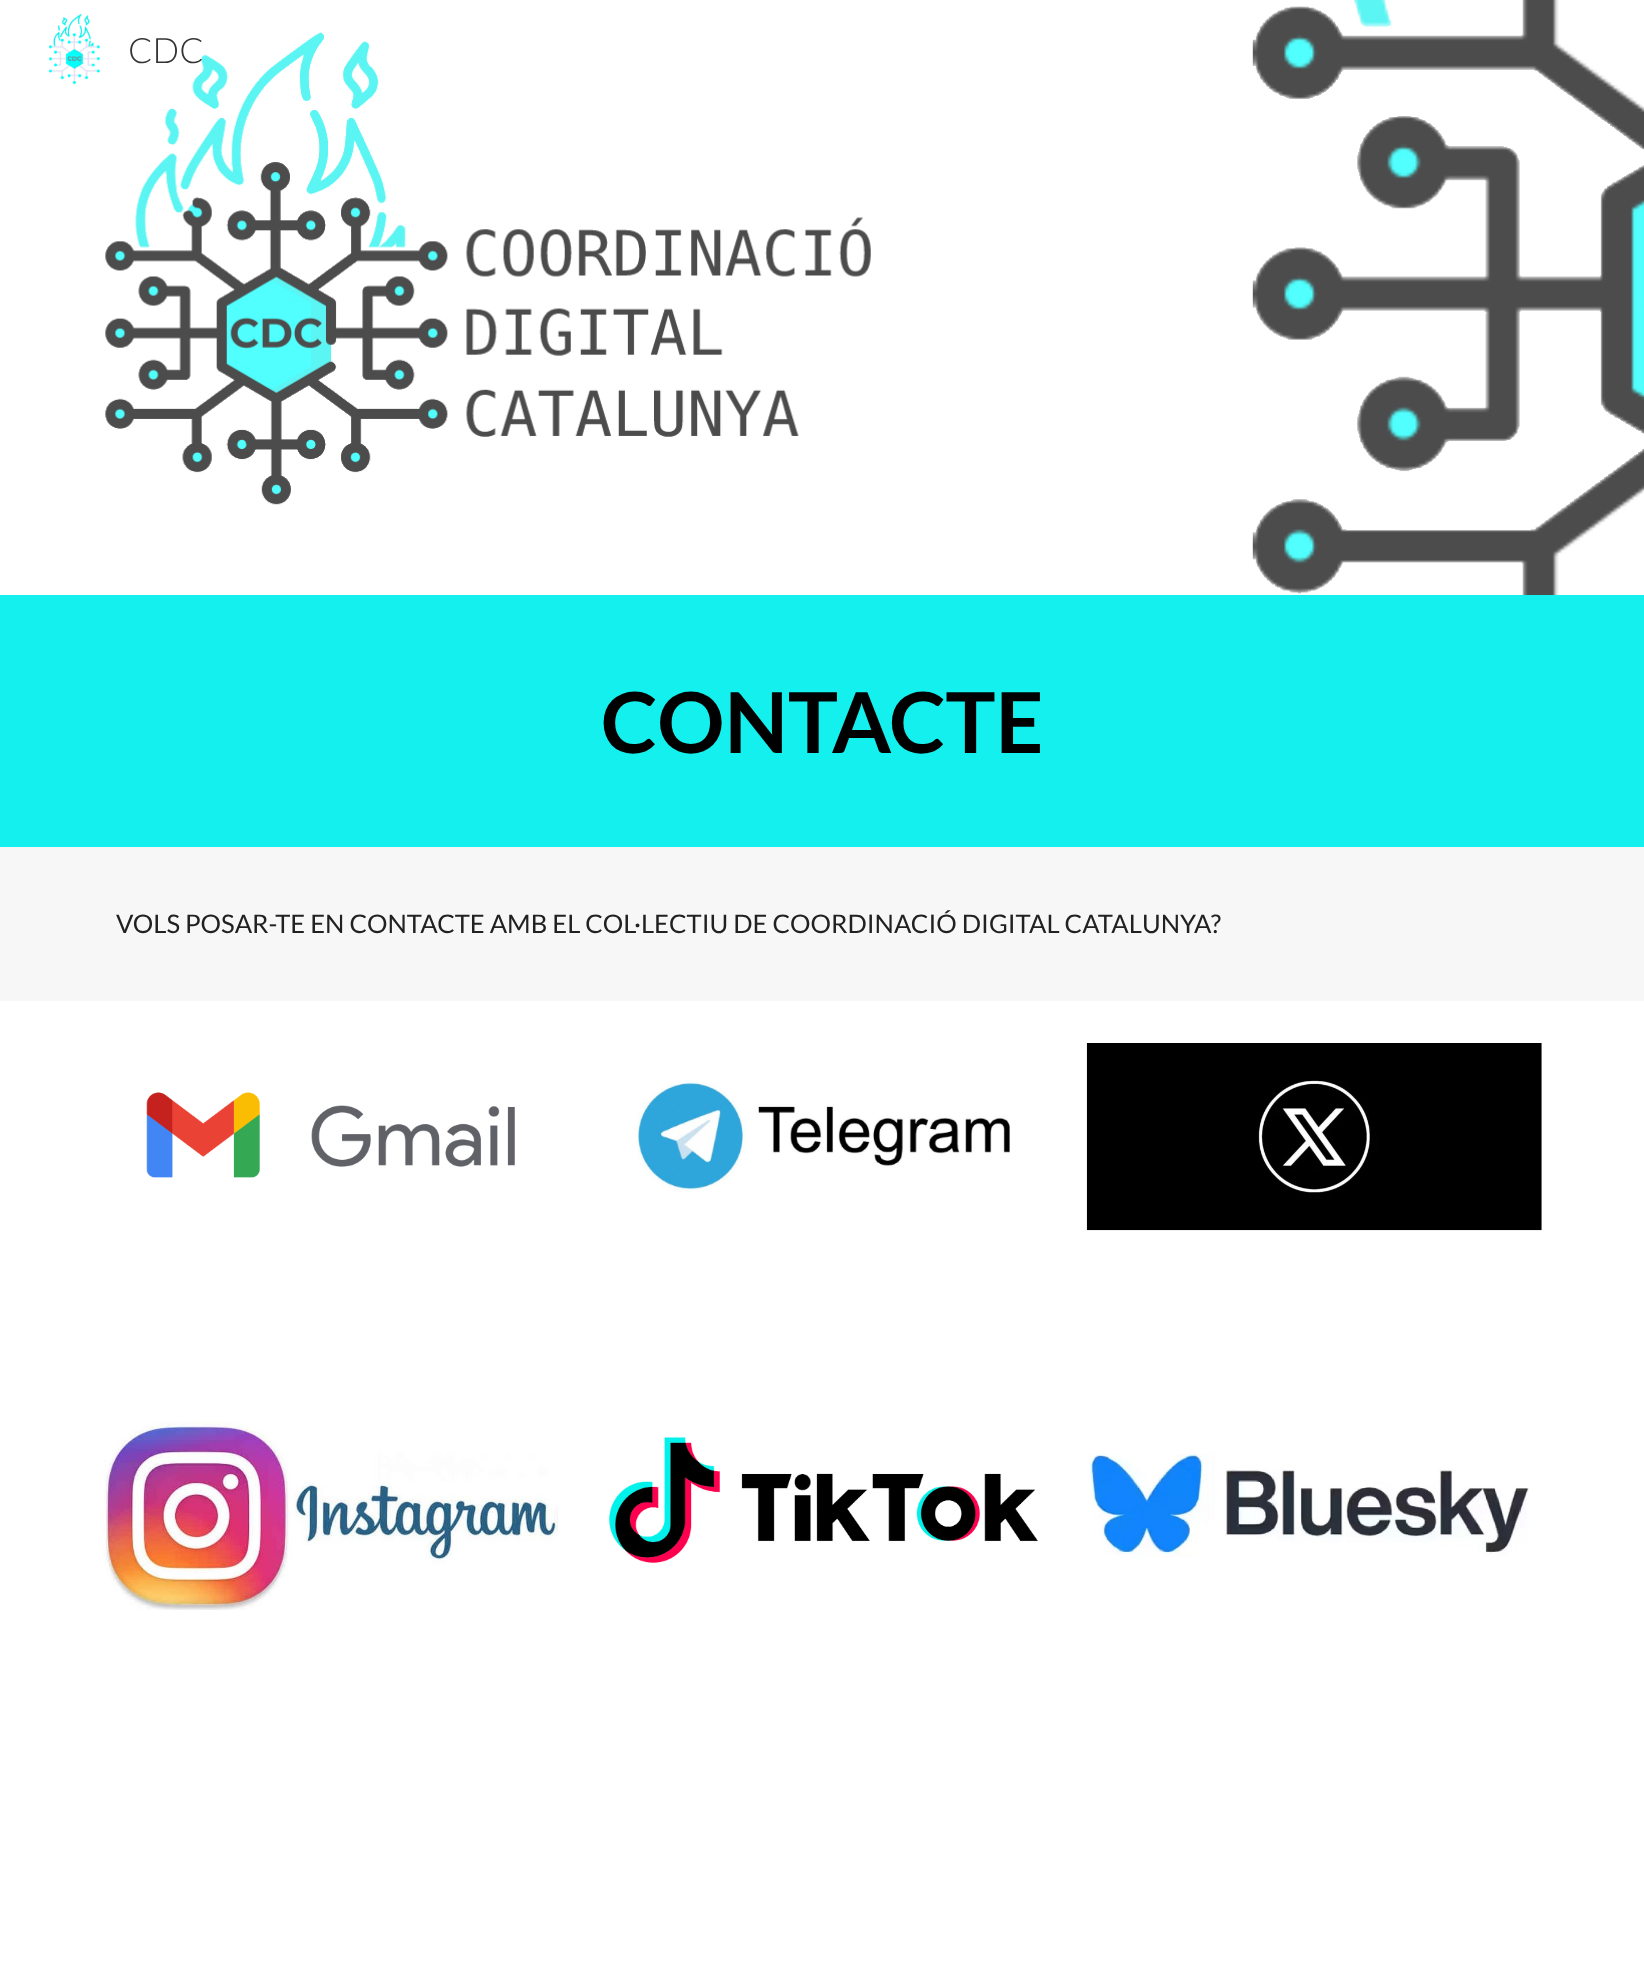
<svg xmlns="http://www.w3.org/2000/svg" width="1644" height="1976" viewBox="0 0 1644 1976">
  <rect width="100%" height="100%" fill="#ffffff"/>
  <image x="0" y="0" width="1644" height="595" href="img2.png"/>
  <image x="49" y="13" width="51" height="72" href="img1.png"/>
  <text x="128" y="63" font-family="Lato" font-size="35" font-weight="300" fill="#333333">CDC</text>
  <rect x="0" y="595" width="1644" height="252" fill="#13f0ed"/>
  <text x="601" y="753" font-family="Lato" font-size="84" font-weight="bold" fill="#000000">CONTACTE</text>
  <rect x="0" y="847" width="1644" height="154" fill="#f7f7f7"/>
  <text x="116" y="933" font-family="Lato" font-size="25.65" fill="#212121">VOLS POSAR-TE EN CONTACTE AMB EL COL·LECTIU DE COORDINACIÓ DIGITAL CATALUNYA?</text>
  <image x="146" y="1092" width="369" height="86" href="img3.png"/>
  <image x="637" y="1082" width="373" height="111" href="img4.png"/>
  <image x="1086" y="1043" width="456" height="188" href="img5.png"/>
  <image x="103" y="1421" width="455" height="189" href="img6.png"/>
  <image x="608" y="1437" width="430" height="127" href="img7.png"/>
  <image x="1089" y="1453" width="440" height="105" href="img8.png"/>
</svg>
